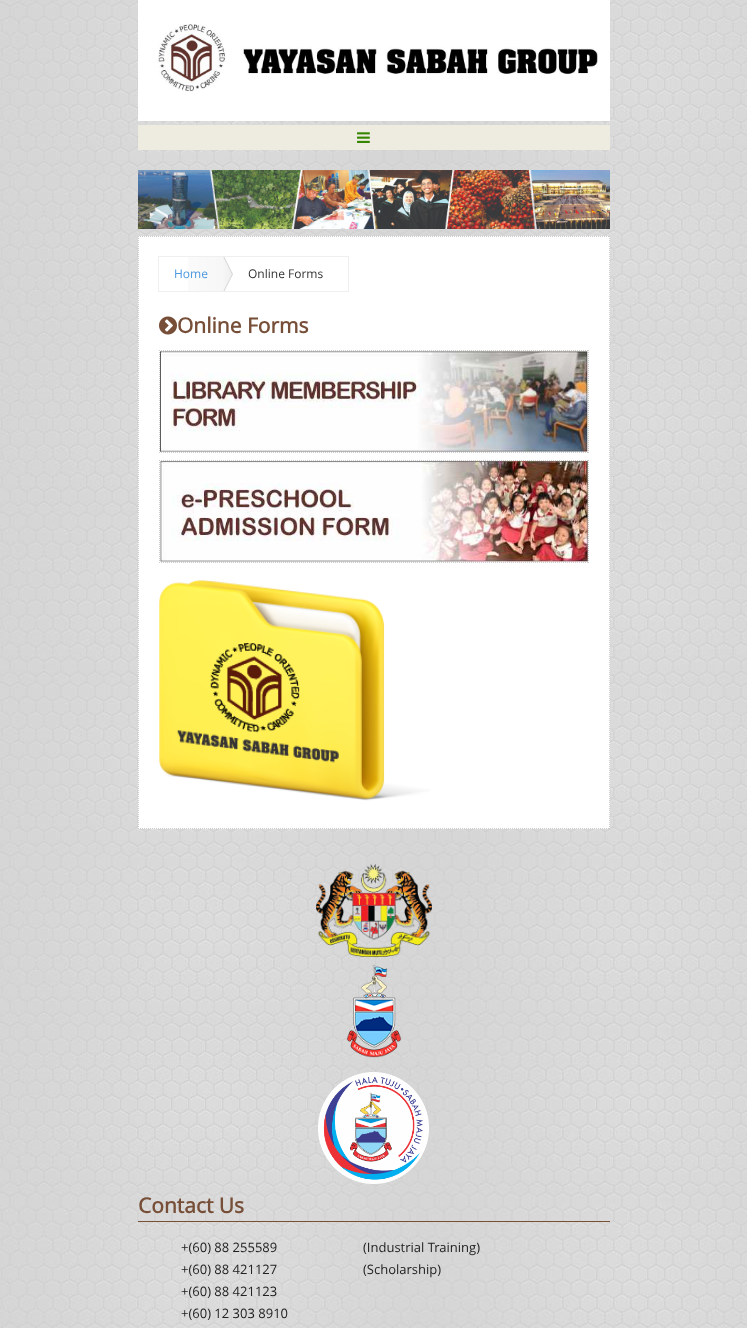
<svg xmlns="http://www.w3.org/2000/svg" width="747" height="1328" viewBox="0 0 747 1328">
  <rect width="100%" height="100%" fill="#ffffff"/>
  <image x="0" y="0" width="747" height="1328" href="img1.png"/>
  <rect x="138" y="0" width="472" height="121" fill="#ffffff"/>
  <image x="158" y="24" width="440" height="68" href="img2.png"/>
  <rect x="138" y="125" width="472" height="25" fill="#eeece0"/>
  <image x="357" y="132" width="13" height="11" href="img3.png"/>
  <image x="138" y="170" width="472" height="59" href="img4.png"/>
  <rect x="138" y="236" width="472" height="593" fill="#ffffff"/>
  <path d="M138 236.5H610" fill="none" stroke="#cccccc" stroke-dasharray="1 1"/>
  <path d="M609.5 236V829" fill="none" stroke="#cccccc" stroke-dasharray="1 1"/>
  <path d="M138 828.5H610" fill="none" stroke="#cccccc" stroke-dasharray="1 1"/>
  <path d="M138.5 236V829" fill="none" stroke="#cccccc" stroke-dasharray="1 1"/>
  <image x="188" y="257" width="45" height="34" href="img5.png"/>
  <rect x="158" y="256" width="191" height="1" fill="#efefef"/>
  <rect x="158" y="291" width="75" height="1" fill="#efefef"/>
  <rect x="158" y="256" width="1" height="36" fill="#efefef"/>
  <text x="174" y="278" font-family="Open Sans" font-size="12" fill="#4d99e0">Home</text>
  <rect x="348" y="256" width="1" height="36" fill="#efefef"/>
  <rect x="233" y="291" width="116" height="1" fill="#efefef"/>
  <text x="248" y="278" font-family="Open Sans" font-size="12" fill="#333333">Online Forms</text>
  <image x="159" y="316" width="18" height="19" href="img6.png"/>
  <text x="177" y="333" font-family="Open Sans" font-size="21" font-weight="bold" fill="#774f38">Online Forms</text>
  <path d="M159 350.5H589" fill="none" stroke="#cccccc" stroke-dasharray="1 1"/>
  <path d="M588.5 350V453" fill="none" stroke="#cccccc" stroke-dasharray="1 1"/>
  <path d="M159 452.5H589" fill="none" stroke="#cccccc" stroke-dasharray="1 1"/>
  <path d="M159.5 350V453" fill="none" stroke="#cccccc" stroke-dasharray="1 1"/>
  <image x="160" y="351" width="428" height="101" href="img7.png"/>
  <path d="M159 460.5H589" fill="none" stroke="#cccccc" stroke-dasharray="1 1"/>
  <path d="M588.5 460V563" fill="none" stroke="#cccccc" stroke-dasharray="1 1"/>
  <path d="M159 562.5H589" fill="none" stroke="#cccccc" stroke-dasharray="1 1"/>
  <path d="M159.5 460V563" fill="none" stroke="#cccccc" stroke-dasharray="1 1"/>
  <image x="160" y="461" width="428" height="101" href="img8.png"/>
  <image x="159" y="580" width="271" height="221" href="img9.png"/>
  <image x="316" y="864" width="116" height="93" href="img10.png"/>
  <image x="346" y="964" width="56" height="94" href="img11.png"/>
  <image x="318" y="1072" width="111" height="112" href="img12.png"/>
  <text x="138" y="1213" font-family="Open Sans" font-size="21" font-weight="bold" fill="#774f38">Contact Us</text>
  <rect x="138" y="1221" width="472" height="1" fill="#774f38"/>
  <text x="181" y="1252" font-family="Open Sans" font-size="13" fill="#222222">+(60) 88 255589</text>
  <text x="363" y="1252" font-family="Open Sans" font-size="13" fill="#222222">(Industrial Training)</text>
  <text x="181" y="1274" font-family="Open Sans" font-size="13" fill="#222222">+(60) 88 421127</text>
  <text x="363" y="1274" font-family="Open Sans" font-size="13" fill="#222222">(Scholarship)</text>
  <text x="181" y="1296" font-family="Open Sans" font-size="13" fill="#222222">+(60) 88 421123</text>
  <text x="181" y="1318" font-family="Open Sans" font-size="13" fill="#222222">+(60) 12 303 8910</text>
</svg>
